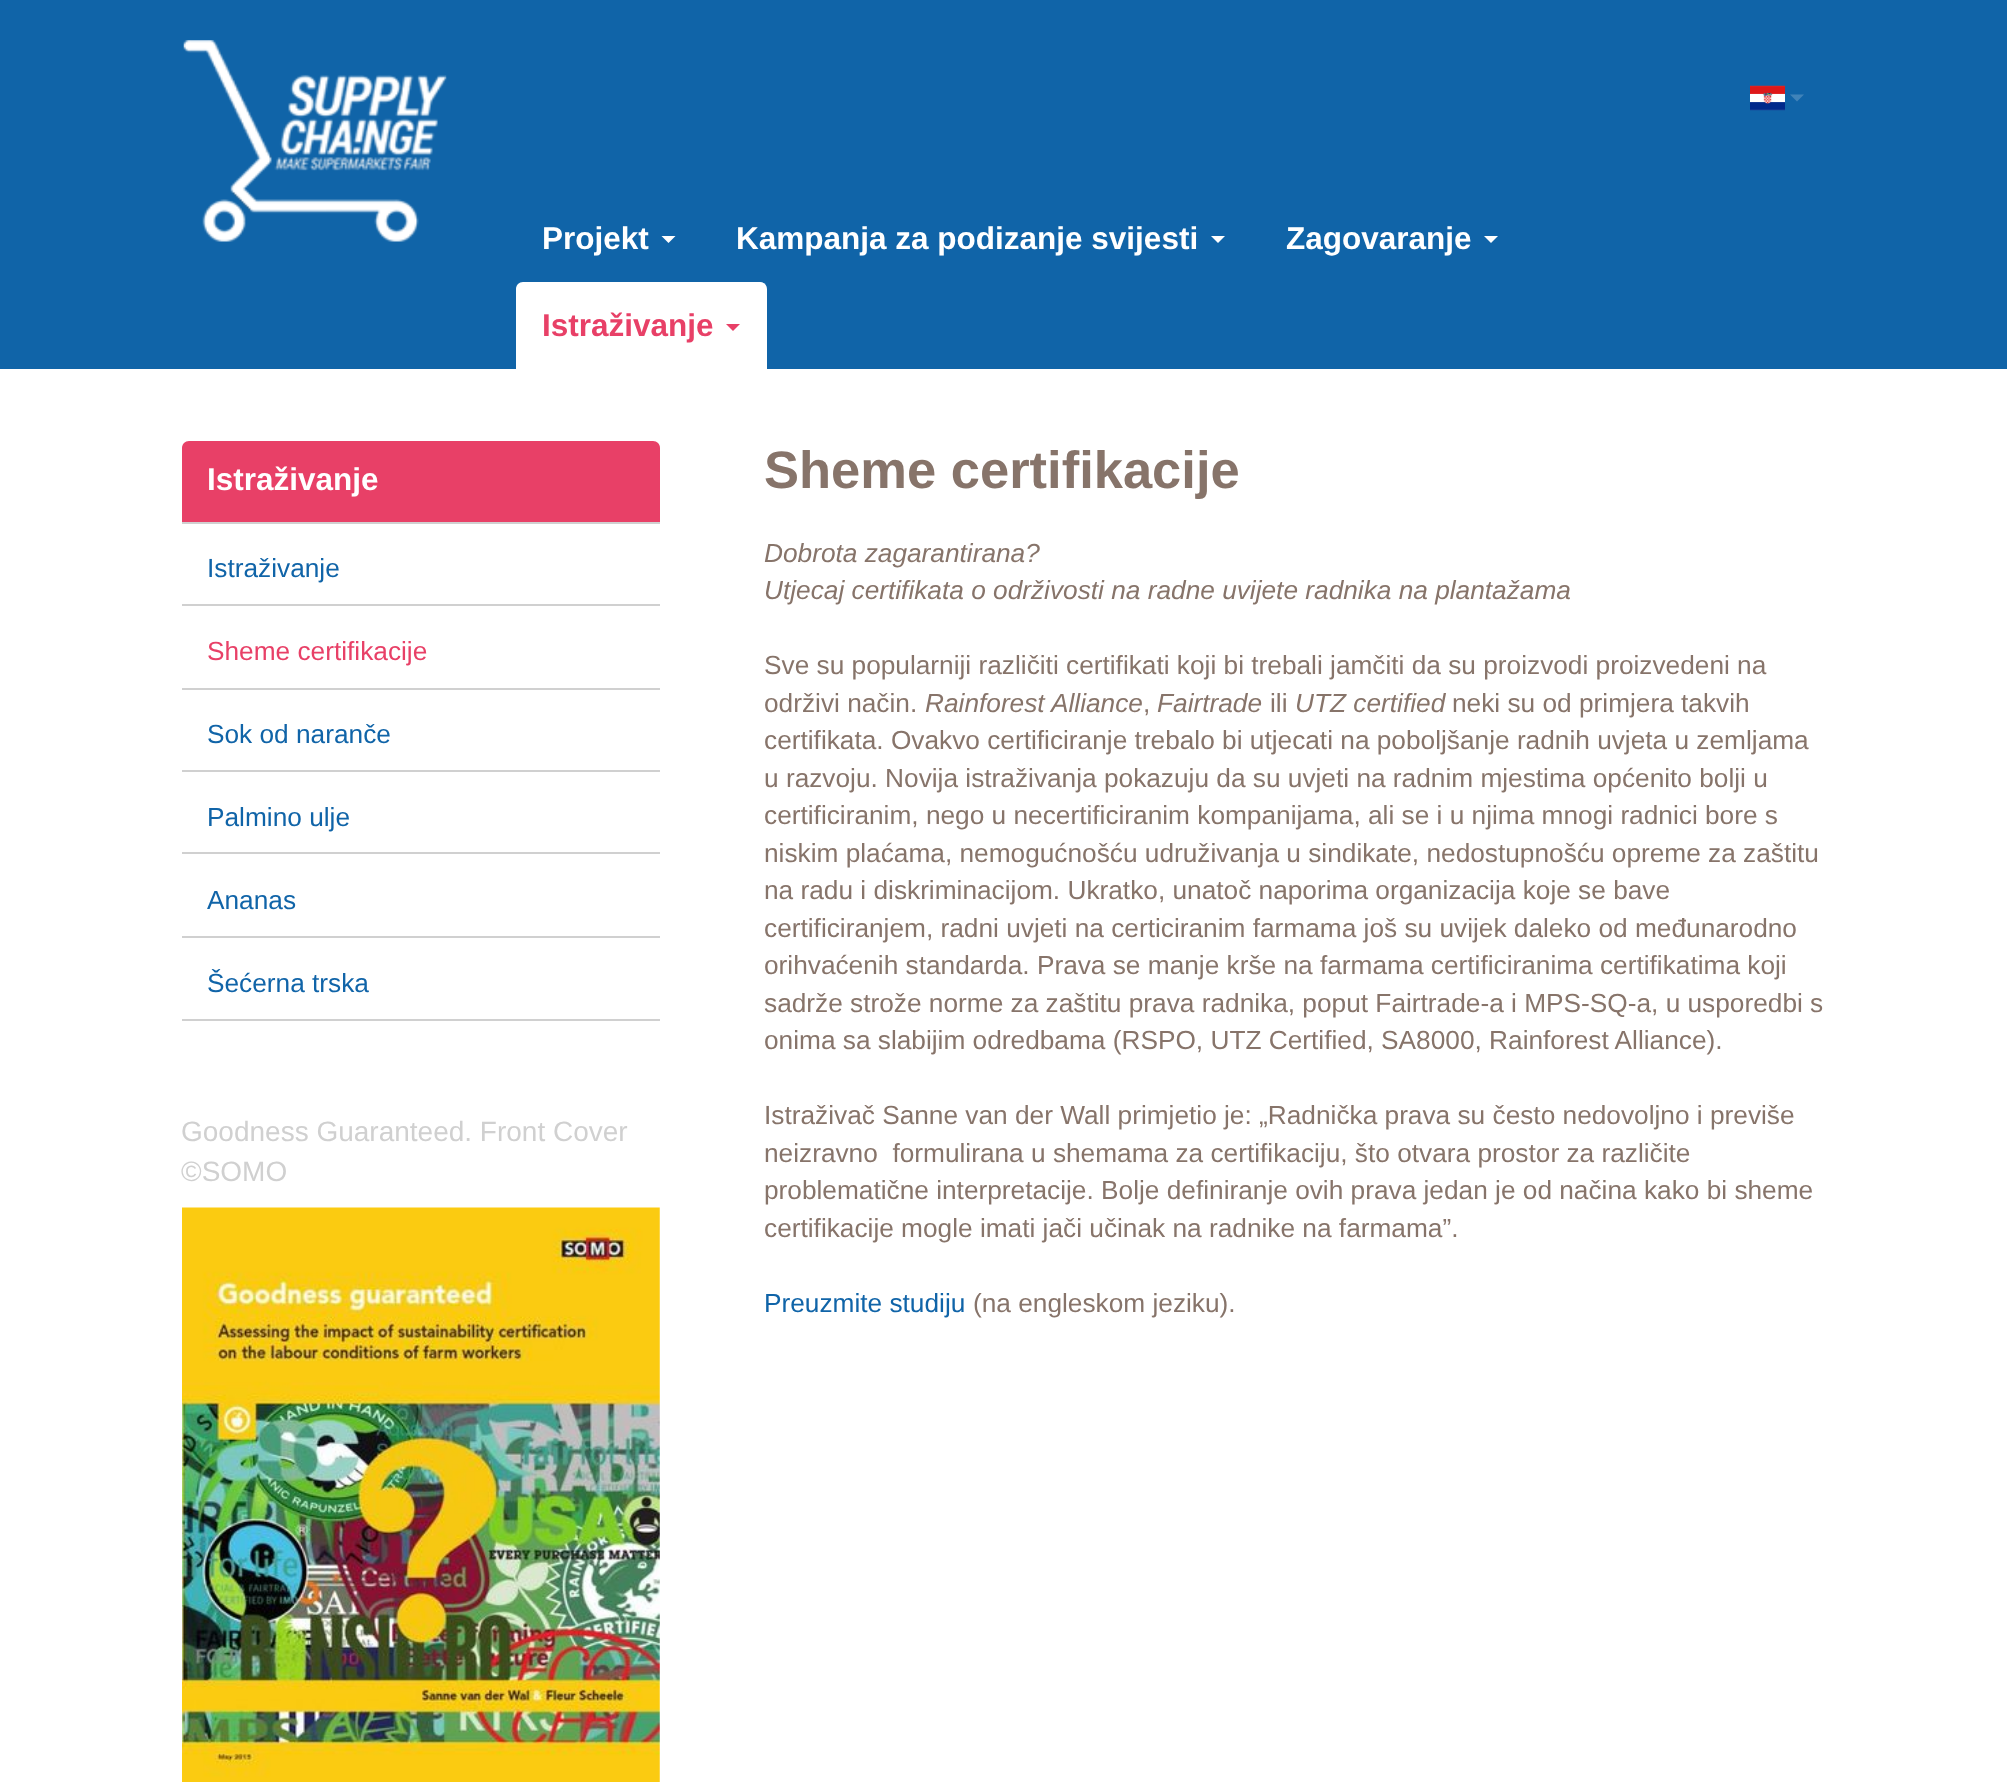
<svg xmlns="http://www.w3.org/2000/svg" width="2007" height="1782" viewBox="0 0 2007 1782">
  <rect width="100%" height="100%" fill="#fff"/>
  <path d="M0 0h2007v369H0z" fill="#1064a8"/>
  <image x="183" y="40" width="264" height="202" href="img/1.png"/>
  <image x="1750" y="85" width="35" height="26" href="img/2.png"/>
  <path d="M1790 94.5H1804L1797 101.5Z" fill="#4083b9"/>
  <path d="M661.5 236H675.5L668.5 243Z" fill="#fff"/>
  <path d="M1211 236H1225L1218 243Z" fill="#fff"/>
  <path d="M1484 236H1498L1491 243Z" fill="#fff"/>
  <path d="M523 282H760C764 282 767 285 767 289V369H516V289C516 285 519 282 523 282Z" fill="#fff"/>
  <path d="M726 324H740L733 331Z" fill="#e84067"/>
  <path d="M189 441H653C657 441 660 444 660 448V523H182V448C182 444 185 441 189 441Z" fill="#e84067"/>
  <path d="M182 522h478v2H182z" fill="#d0d0d0"/>
  <path d="M182 604h478v2H182z" fill="#d0d0d0"/>
  <path d="M182 688h478v2H182z" fill="#d0d0d0"/>
  <path d="M182 770h478v2H182z" fill="#d0d0d0"/>
  <path d="M182 852h478v2H182z" fill="#d0d0d0"/>
  <path d="M182 936h478v2H182z" fill="#d0d0d0"/>
  <path d="M182 1019h478v2H182z" fill="#d0d0d0"/>
  <image x="182" y="1207" width="478" height="575" href="img/3.png"/>
  <g font-family="Liberation Sans" font-size="31.5" font-weight="bold" fill="#fff">
    <text x="542" y="249">Projekt</text>
    <text x="736" y="249">Kampanja za podizanje svijesti</text>
    <text x="1286" y="249">Zagovaranje</text>
  </g>
  <text x="542" y="336" font-family="Liberation Sans" font-size="31.5" font-weight="bold" fill="#e84067">Istraživanje</text>
  <text x="207" y="490" font-family="Liberation Sans" font-size="31.5" font-weight="bold" fill="#fff">Istraživanje</text>
  <text x="207" y="577" font-family="Liberation Sans" font-size="26.25" fill="#1064a8">Istraživanje</text>
  <text x="207" y="660" font-family="Liberation Sans" font-size="26.25" fill="#e84067">Sheme certifikacije</text>
  <g font-family="Liberation Sans" font-size="26.25" fill="#1064a8">
    <text x="207" y="743">Sok od naranče</text>
    <text x="207" y="826">Palmino ulje</text>
    <text x="207" y="909">Ananas</text>
    <text x="207" y="992">Šećerna trska</text>
  </g>
  <g font-family="Liberation Sans" font-size="28" fill="#d0d0d0">
    <text x="181" y="1141">Goodness Guaranteed. Front Cover</text>
    <text x="181" y="1181">©SOMO</text>
  </g>
  <text x="764" y="488" font-family="Liberation Sans" font-size="52.5" font-weight="bold" fill="#87746a">Sheme certifikacije</text>
  <g font-family="Liberation Sans" font-size="26.25" font-style="italic" fill="#87746a">
    <text x="764" y="562">Dobrota zagarantirana?</text>
    <text x="764" y="599">Utjecaj certifikata o održivosti na radne uvijete radnika na plantažama</text>
  </g>
  <g font-family="Liberation Sans" font-size="26.25" fill="#87746a">
    <text x="764" y="674">Sve su popularniji različiti certifikati koji bi trebali jamčiti da su proizvodi proizvedeni na</text>
    <text x="764" y="712">održivi način.</text>
  </g>
  <text x="925" y="712" font-family="Liberation Sans" font-size="26.25" font-style="italic" fill="#87746a">Rainforest Alliance</text>
  <text x="1143" y="712" font-family="Liberation Sans" font-size="26.25" fill="#87746a">,</text>
  <text x="1157" y="712" font-family="Liberation Sans" font-size="26.25" font-style="italic" fill="#87746a">Fairtrade</text>
  <text x="1270" y="712" font-family="Liberation Sans" font-size="26.25" fill="#87746a">ili</text>
  <text x="1295" y="712" font-family="Liberation Sans" font-size="26.25" font-style="italic" fill="#87746a">UTZ certified</text>
  <g font-family="Liberation Sans" font-size="26.25" fill="#87746a">
    <text x="1452" y="712">neki su od primjera takvih</text>
    <text x="764" y="749">certifikata. Ovakvo certificiranje trebalo bi utjecati na poboljšanje radnih uvjeta u zemljama</text>
    <text x="764" y="787">u razvoju. Novija istraživanja pokazuju da su uvjeti na radnim mjestima općenito bolji u</text>
    <text x="764" y="824">certificiranim, nego u necertificiranim kompanijama, ali se i u njima mnogi radnici bore s</text>
    <text x="764" y="862">niskim plaćama, nemogućnošću udruživanja u sindikate, nedostupnošću opreme za zaštitu</text>
    <text x="764" y="899">na radu i diskriminacijom. Ukratko, unatoč naporima organizacija koje se bave</text>
    <text x="764" y="937">certificiranjem, radni uvjeti na certiciranim farmama još su uvijek daleko od međunarodno</text>
    <text x="764" y="974">orihvaćenih standarda. Prava se manje krše na farmama certificiranima certifikatima koji</text>
    <text x="764" y="1012">sadrže strože norme za zaštitu prava radnika, poput Fairtrade-a i MPS-SQ-a, u usporedbi s</text>
    <text x="764" y="1049">onima sa slabijim odredbama (RSPO, UTZ Certified, SA8000, Rainforest Alliance).</text>
    <text x="764" y="1124">Istraživač Sanne van der Wall primjetio je: „Radnička prava su često nedovoljno i previše</text>
    <text x="764" y="1162" xml:space="preserve">neizravno  formulirana u shemama za certifikaciju, što otvara prostor za različite</text>
    <text x="764" y="1199">problematične interpretacije. Bolje definiranje ovih prava jedan je od načina kako bi sheme</text>
    <text x="764" y="1237">certifikacije mogle imati jači učinak na radnike na farmama”.</text>
  </g>
  <text x="764" y="1312" font-family="Liberation Sans" font-size="26.25" fill="#1064a8">Preuzmite studiju</text>
  <text x="973" y="1312" font-family="Liberation Sans" font-size="26.25" fill="#87746a">(na engleskom jeziku).</text>
</svg>
